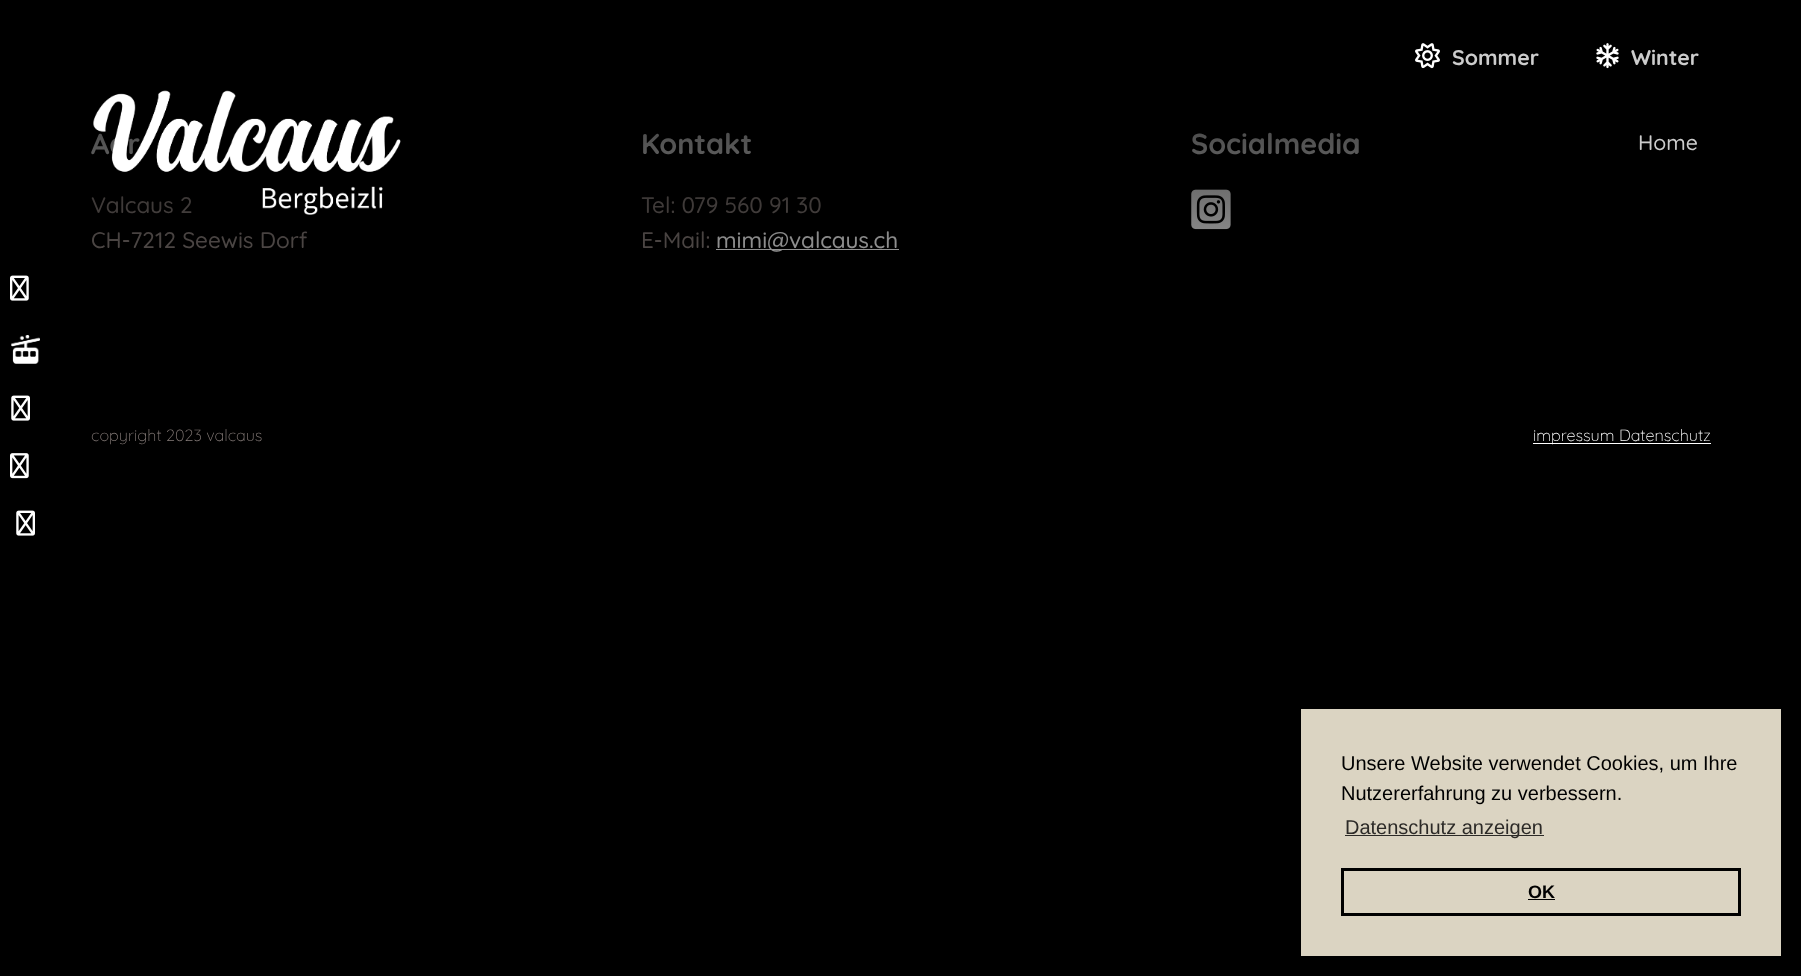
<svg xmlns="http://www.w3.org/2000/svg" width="1801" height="976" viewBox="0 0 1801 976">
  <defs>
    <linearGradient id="g1" gradientUnits="userSpaceOnUse" x1="901" y1="0" x2="901" y2="438"><stop offset="0" stop-color="#000"/><stop offset="1" stop-color="#000" stop-opacity="0"/></linearGradient>
  </defs>
  <rect width="100%" height="100%" fill="#000"/>
  <image x="1415" y="43" width="25" height="26" href="img/1.png"/>
  <image x="1596" y="43" width="23" height="26" href="img/2.png"/>
  <path d="M716 249h183v1H716z" fill="#fff"/>
  <image x="1191" y="189" width="40" height="41" href="img/3.png"/>
  <image x="10" y="275" width="19" height="26" href="img/5.png"/>
  <image x="11" y="335" width="29" height="29" href="img/6.png"/>
  <image x="11" y="395" width="19" height="26" href="img/7.png"/>
  <image x="10" y="453" width="19" height="26" href="img/8.png"/>
  <image x="16" y="510" width="19" height="26" href="img/7.png"/>
  <path d="M1533 443h178v1H1533z" fill="#fff"/>
  <path d="M1301 709h480v247H1301z" fill="#dbd4c2"/>
  <path d="M1345 835h199v1H1345z" fill="#2c2a27"/>
  <path d="M1342.5 869.5h397v45H1342.5z" fill="none" stroke="#000" stroke-width="3"/>
  <path d="M1528 899h27v1H1528z" fill="#000"/>
  <g font-family="Quicksand" font-size="21.25" font-weight="bold" fill="#ccc">
    <text x="1452" y="65">Sommer</text>
    <text x="1631" y="65">Winter</text>
  </g>
  <text x="91" y="154" font-family="Quicksand" font-size="28.75" font-weight="bold" fill="#fff">Adr</text>
  <g font-family="Quicksand" font-size="22.5" font-weight="500" fill="#867c79">
    <text x="91" y="213">Valcaus 2</text>
    <text x="91" y="248">CH-7212 Seewis Dorf</text>
  </g>
  <text x="641" y="154" font-family="Quicksand" font-size="28.75" font-weight="bold" fill="#fff">Kontakt</text>
  <g font-family="Quicksand" font-size="22.5" font-weight="500" fill="#867c79">
    <text x="641" y="213">Tel: 079 560 91 30</text>
    <text x="641" y="248">E-Mail:</text>
  </g>
  <text x="716" y="248" font-family="Quicksand" font-size="22.5" font-weight="500" fill="#fff">mimi@valcaus.ch</text>
  <text x="1191" y="154" font-family="Quicksand" font-size="28.75" font-weight="bold" fill="#fff">Socialmedia</text>
  <path d="M90 132h1268v120H90z" fill="url(#g1)"/>
  <image x="93" y="90" width="308" height="125" href="img/4.png"/>
  <text x="1638" y="150" font-family="Quicksand" font-size="21.25" font-weight="500" fill="#ccc">Home</text>
  <text x="91" y="441" font-family="Quicksand" font-size="16.25" font-weight="300" fill="#867c79">copyright 2023 valcaus</text>
  <text x="1533" y="441" font-family="Quicksand" font-size="16.25" font-weight="300" fill="#fff">impressum Datenschutz</text>
  <g font-family="Liberation Sans" font-size="20" fill="#000">
    <text x="1341" y="770">Unsere Website verwendet Cookies, um Ihre</text>
    <text x="1341" y="800">Nutzererfahrung zu verbessern.</text>
  </g>
  <text x="1345" y="834" font-family="Liberation Sans" font-size="20" fill="#2c2a27">Datenschutz anzeigen</text>
  <text x="1528" y="898" font-family="Liberation Sans" font-size="18" font-weight="bold" fill="#000">OK</text>
</svg>
